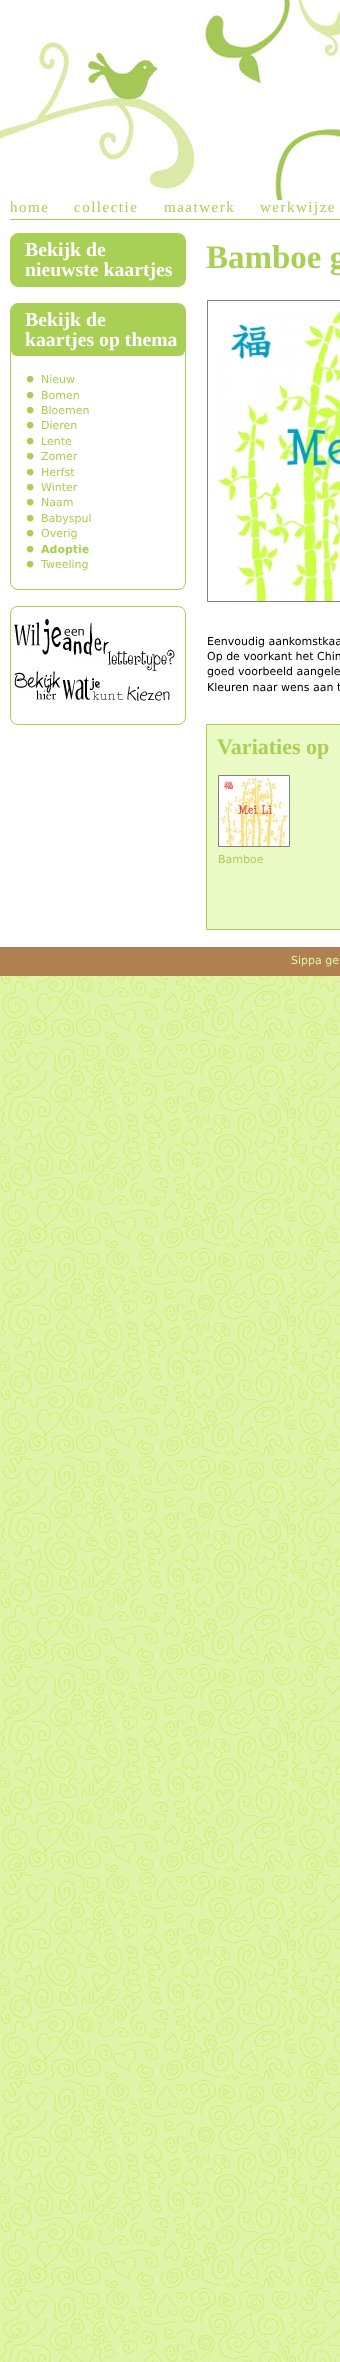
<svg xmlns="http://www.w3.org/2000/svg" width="340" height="2362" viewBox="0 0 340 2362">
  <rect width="100%" height="100%" fill="#fff"/>
  <image x="0" y="976" width="340" height="1386" href="img/1.png"/>
  <image x="0" y="0" width="340" height="200" href="img/2.png"/>
  <path d="M10 219h330v1H10z" fill="#a9cf54"/>
  <rect x="10.5" y="233.5" width="175" height="53" rx="7.5" fill="none" stroke="#a9cf54"/>
  <rect x="11" y="234" width="174" height="52" rx="6" fill="#a9cf54"/>
  <rect x="10.5" y="303.5" width="175" height="286" rx="7.5" fill="none" stroke="#a9cf54"/>
  <rect x="11" y="304" width="174" height="52" rx="6" fill="#a9cf54"/>
  <image x="27" y="376" width="7" height="7" href="img/3.png"/>
  <image x="27" y="392" width="7" height="7" href="img/3.png"/>
  <image x="27" y="407" width="7" height="7" href="img/3.png"/>
  <image x="27" y="422" width="7" height="7" href="img/3.png"/>
  <image x="27" y="438" width="7" height="7" href="img/3.png"/>
  <image x="27" y="453" width="7" height="7" href="img/3.png"/>
  <image x="27" y="469" width="7" height="7" href="img/3.png"/>
  <image x="27" y="484" width="7" height="7" href="img/3.png"/>
  <image x="27" y="499" width="7" height="7" href="img/3.png"/>
  <image x="27" y="515" width="7" height="7" href="img/3.png"/>
  <image x="27" y="530" width="7" height="7" href="img/3.png"/>
  <image x="27" y="546" width="7" height="7" href="img/3.png"/>
  <image x="27" y="561" width="7" height="7" href="img/3.png"/>
  <rect x="10.5" y="606.5" width="175" height="118" rx="7.5" fill="none" stroke="#a9cf54"/>
  <image x="11" y="613" width="164" height="88" href="img/4.png"/>
  <path d="M207.5 300.5h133v301H207.5z" fill="none" stroke="#808080"/>
  <image x="217" y="310" width="123" height="291" href="img/5.png"/>
  <path d="M206.5 724.5h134v205H206.5z" fill="#eafac5" stroke="#a9cf54"/>
  <path d="M218.5 775.5h71v71H218.5z" fill="none" stroke="#808080"/>
  <image x="219" y="776" width="70" height="70" href="img/6.png"/>
  <path d="M0 947h340v29H0z" fill="#b18050"/>
  <g font-family="Liberation Serif" font-size="15" letter-spacing="1.5" fill="#a9cf54">
    <text x="10" y="212">home</text>
    <text x="74" y="212">collectie</text>
    <text x="164" y="212">maatwerk</text>
    <text x="260" y="212">werkwijze</text>
  </g>
  <g font-family="Liberation Serif" font-size="19.75" font-weight="bold" fill="#fff">
    <text x="25" y="256">Bekijk de</text>
    <text x="25" y="276">nieuwste kaartjes</text>
    <text x="25" y="326">Bekijk de</text>
    <text x="25" y="346">kaartjes op thema</text>
  </g>
  <g font-family="DejaVu Sans" font-size="11" fill="#a9cf54">
    <text x="41" y="383">Nieuw</text>
    <text x="41" y="399">Bomen</text>
    <text x="41" y="414">Bloemen</text>
    <text x="41" y="429">Dieren</text>
    <text x="41" y="445">Lente</text>
    <text x="41" y="460">Zomer</text>
    <text x="41" y="476">Herfst</text>
    <text x="41" y="491">Winter</text>
    <text x="41" y="506">Naam</text>
    <text x="41" y="522">Babyspul</text>
    <text x="41" y="537">Overig</text>
  </g>
  <text x="41" y="553" font-family="DejaVu Sans" font-size="11" font-weight="bold" fill="#a9cf54">Adoptie</text>
  <text x="41" y="568" font-family="DejaVu Sans" font-size="11" fill="#a9cf54">Tweeling</text>
  <text x="206" y="268" font-family="Liberation Serif" font-size="33" font-weight="bold" fill="#a9cf54">Bamboe g</text>
  <g font-family="DejaVu Sans" font-size="11" fill="#000">
    <text x="207" y="645">Eenvoudig aankomstkaa</text>
    <text x="207" y="660">Op de voorkant het Chin</text>
    <text x="207" y="675">goed voorbeeld aangele</text>
    <text x="207" y="691">Kleuren naar wens aan t</text>
  </g>
  <text x="217" y="754" font-family="Liberation Serif" font-size="22" font-weight="bold" fill="#a9cf54">Variaties op</text>
  <text x="218" y="863" font-family="DejaVu Sans" font-size="11" fill="#a9cf54">Bamboe</text>
  <text x="291" y="964" font-family="DejaVu Sans" font-size="11" fill="#e0f4a8">Sippa ge</text>
</svg>
